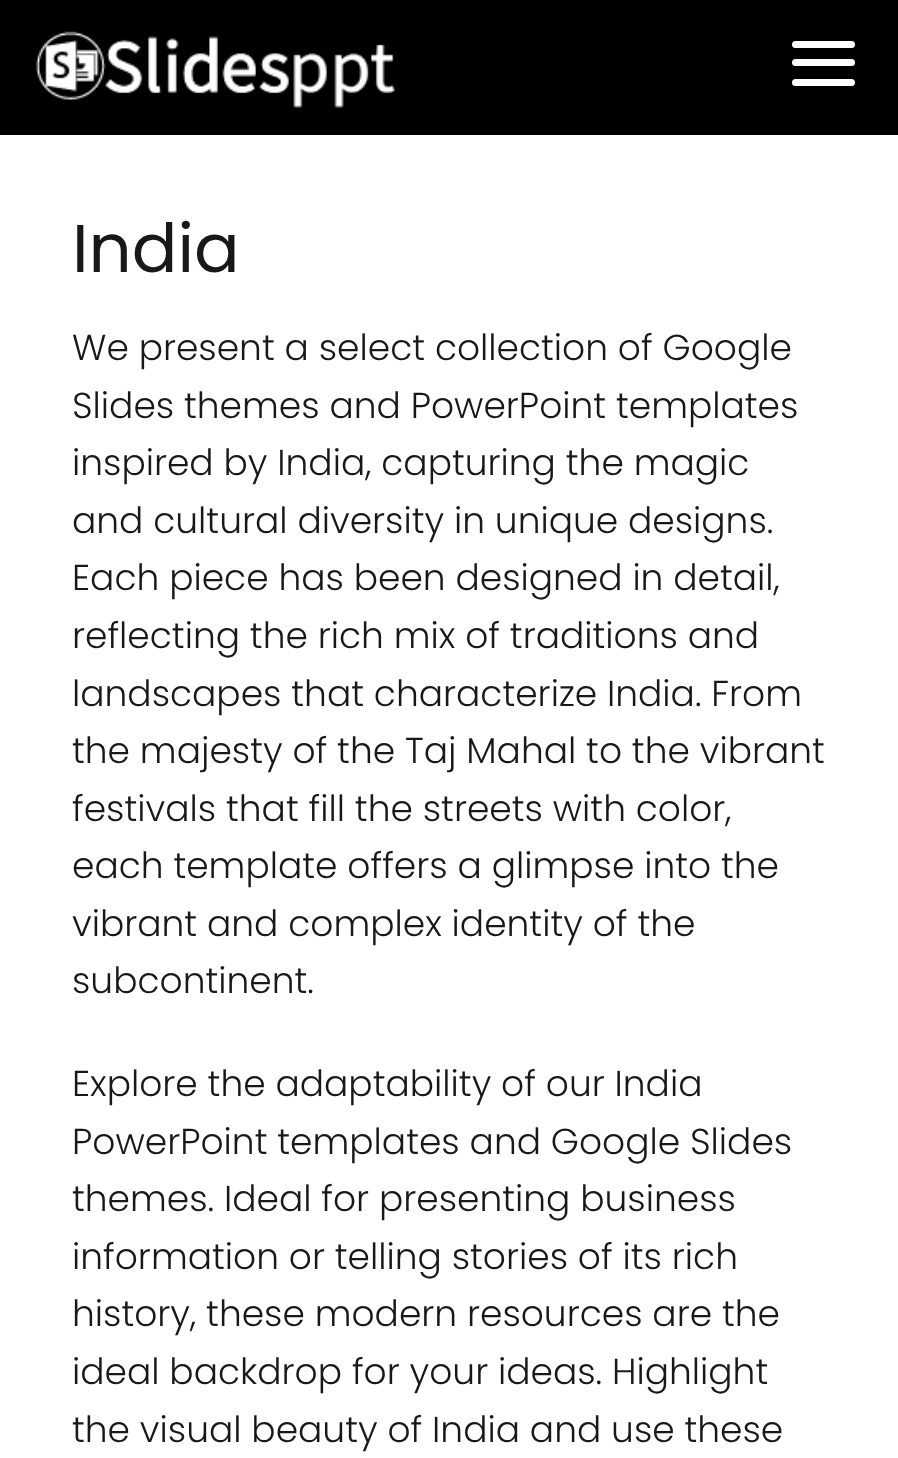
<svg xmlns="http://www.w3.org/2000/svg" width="898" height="1458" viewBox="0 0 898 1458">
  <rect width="100%" height="100%" fill="#fff"/>
  <path d="M0 0h898v135H0z" fill="#000"/>
  <image x="36" y="31" width="359" height="77" href="img/1.png"/>
  <rect x="792" y="41" width="63" height="7" rx="3.5" fill="#fff"/>
  <rect x="792" y="59" width="63" height="7" rx="3.5" fill="#fff"/>
  <rect x="792" y="79" width="63" height="7" rx="3.5" fill="#fff"/>
  <text x="72" y="272" font-family="Poppins" font-size="67.5" fill="#181818">India</text>
  <g font-family="Poppins" font-size="36" font-weight="300" fill="#181818">
    <text x="72" y="360">We present a select collection of Google</text>
    <text x="72" y="418">Slides themes and PowerPoint templates</text>
    <text x="72" y="475">inspired by India, capturing the magic</text>
    <text x="72" y="533">and cultural diversity in unique designs.</text>
    <text x="72" y="590">Each piece has been designed in detail,</text>
    <text x="72" y="648">reflecting the rich mix of traditions and</text>
    <text x="72" y="706">landscapes that characterize India. From</text>
    <text x="72" y="763">the majesty of the Taj Mahal to the vibrant</text>
    <text x="72" y="821">festivals that fill the streets with color,</text>
    <text x="72" y="878">each template offers a glimpse into the</text>
    <text x="72" y="936">vibrant and complex identity of the</text>
    <text x="72" y="993">subcontinent.</text>
    <text x="72" y="1096">Explore the adaptability of our India</text>
    <text x="72" y="1154">PowerPoint templates and Google Slides</text>
    <text x="72" y="1211">themes. Ideal for presenting business</text>
    <text x="72" y="1269">information or telling stories of its rich</text>
    <text x="72" y="1326">history, these modern resources are the</text>
    <text x="72" y="1384">ideal backdrop for your ideas. Highlight</text>
    <text x="72" y="1442">the visual beauty of India and use these</text>
  </g>
</svg>
